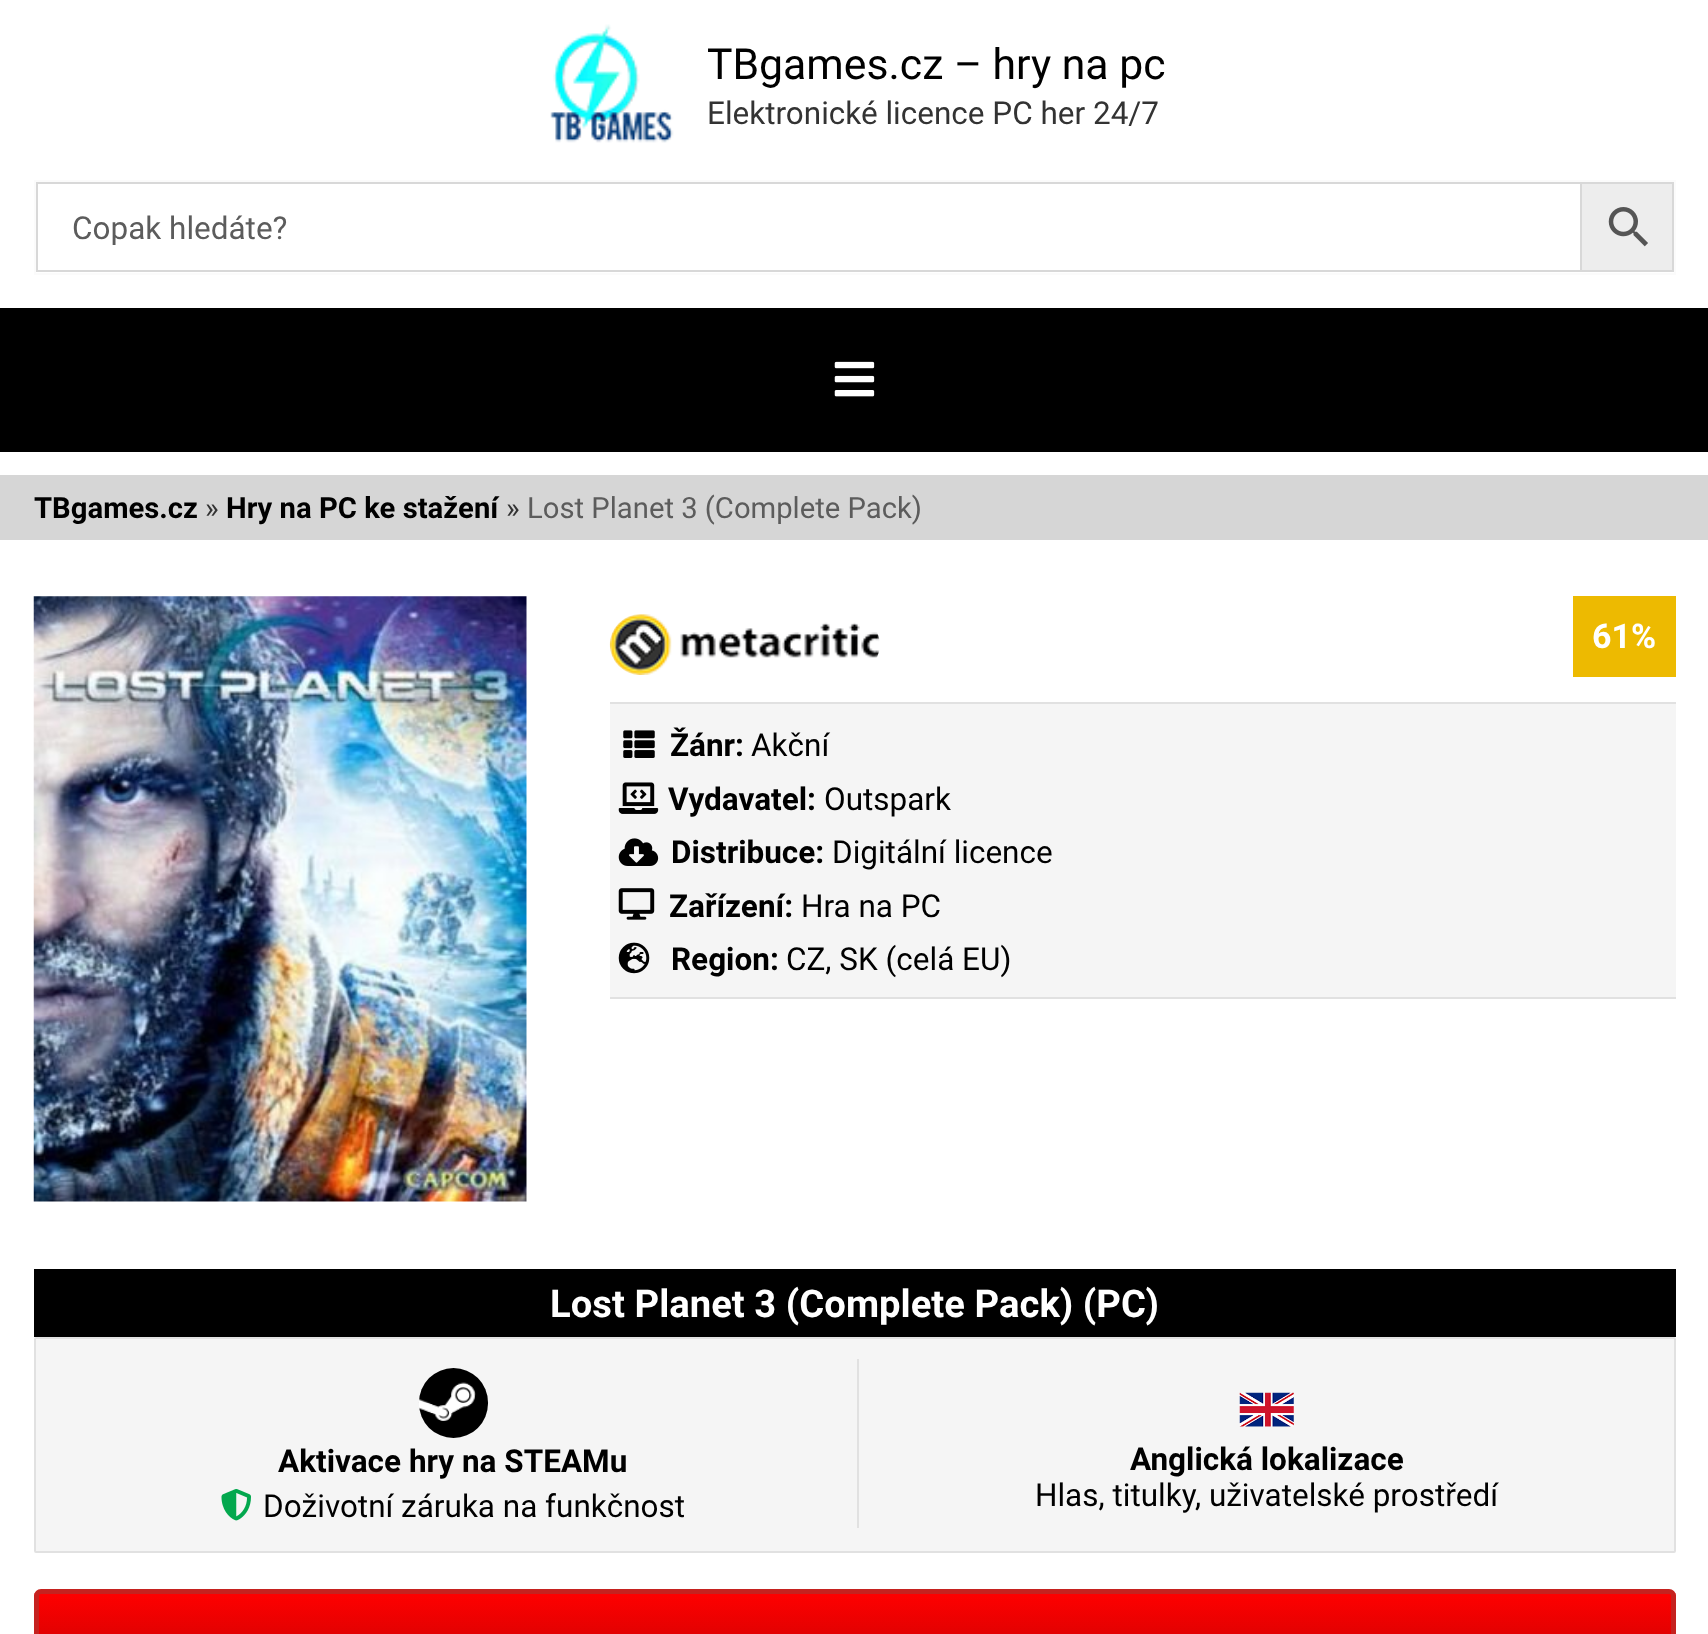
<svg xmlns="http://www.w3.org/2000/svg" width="1708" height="1634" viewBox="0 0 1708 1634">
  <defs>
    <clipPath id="clip1"><rect x="34" y="1589" width="1642" height="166" rx="7"/></clipPath>
    <linearGradient id="g1" gradientUnits="userSpaceOnUse" x1="855" y1="1593" x2="855" y2="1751"><stop offset="0" stop-color="#f00"/><stop offset="1" stop-color="#930404"/></linearGradient>
    <clipPath id="clip2"><path d="M72 209h1418v36H72z"/></clipPath>
  </defs>
  <rect width="100%" height="100%" fill="#fff"/>
  <image x="550" y="24" width="124" height="119" href="img/1.png"/>
  <path d="M35 181h1640v93H35z" fill="none" stroke="#fbfbfb" stroke-width="2"/>
  <path d="M1581 183h92v88H1581z" fill="#ededed" stroke="#d8d8d8" stroke-width="2"/>
  <path d="M37 183h1544v88H37z" fill="none" stroke="#d8d8d8" stroke-width="2"/>
  <image x="1608" y="207" width="40" height="40" href="img/2.png"/>
  <path d="M0 308h1708v144H0z" fill="#000"/>
  <image x="834" y="361" width="41" height="36" href="img/3.png"/>
  <path d="M0 475h1708v65H0z" fill="#d6d6d6"/>
  <image x="33" y="596" width="494" height="606" href="img/4.png"/>
  <image x="609" y="614" width="271" height="61" href="img/5.png"/>
  <path d="M1573 596h103v81H1573z" fill="#edba01"/>
  <path d="M610 704h1066v293H610z" fill="#f5f5f5"/>
  <path d="M610 702h1066v2H610z" fill="#e1e1e1"/>
  <path d="M610 997h1066v2H610z" fill="#e1e1e1"/>
  <image x="623" y="730" width="32" height="28" href="img/6.png"/>
  <image x="618" y="782" width="41" height="32" href="img/7.png"/>
  <image x="618" y="838" width="41" height="28" href="img/8.png"/>
  <image x="618" y="888" width="37" height="32" href="img/9.png"/>
  <image x="618" y="942" width="32" height="32" href="img/10.png"/>
  <path d="M34 1269h1642v68H34z" fill="#000"/>
  <rect x="35" y="1338" width="1640" height="214" rx="1" fill="#f5f5f5" stroke="#e1e1e1" stroke-width="2"/>
  <path d="M857 1359h2v169H857z" fill="#e1e1e1"/>
  <rect x="419" y="1368" width="69" height="70" rx="34.5" fill="#000"/>
  <image x="419" y="1382" width="57" height="39" href="img/11.png"/>
  <image x="221" y="1489" width="30" height="32" href="img/12.png"/>
  <image x="1239" y="1392" width="55" height="35" href="img/13.png"/>
  <g clip-path="url(#clip1)">
    <path d="M34 1593h1642v41H34z" fill="url(#g1)"/>
  </g>
  <rect x="36.5" y="1591.5" width="1637" height="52" rx="4.5" fill="none" stroke="#c5221f" stroke-width="5"/>
  <text x="707" y="79" font-family="Roboto" font-size="42.75" fill="#000">TBgames.cz – hry na pc</text>
  <text x="707" y="124" font-family="Roboto" font-size="31.5" fill="#333">Elektronické licence PC her 24/7</text>
  <g clip-path="url(#clip2)">
    <text x="72" y="239" font-family="Roboto" font-size="31.5" fill="#5c5c5c">Copak hledáte?</text>
  </g>
  <text x="34" y="518" font-family="Roboto" font-size="29.25" font-weight="bold" fill="#000">TBgames.cz</text>
  <text x="205" y="518" font-family="Roboto" font-size="29.25" fill="#333">»</text>
  <text x="226" y="518" font-family="Roboto" font-size="29.25" font-weight="bold" fill="#000">Hry na PC ke stažení</text>
  <text x="506" y="518" font-family="Roboto" font-size="29.25" fill="#333">»</text>
  <text x="527" y="518" font-family="Roboto" font-size="29.25" fill="#5c5c5c">Lost Planet 3 (Complete Pack)</text>
  <text x="1592" y="648" font-family="Roboto" font-size="34" font-weight="bold" fill="#fff">61%</text>
  <text x="670" y="756" font-family="Roboto" font-size="31.5" font-weight="bold" fill="#000">Žánr:</text>
  <text x="751" y="756" font-family="Roboto" font-size="31.5" fill="#000">Akční</text>
  <text x="668" y="810" font-family="Roboto" font-size="31.5" font-weight="bold" fill="#000">Vydavatel:</text>
  <text x="824" y="810" font-family="Roboto" font-size="31.5" fill="#000">Outspark</text>
  <text x="671" y="863" font-family="Roboto" font-size="31.5" font-weight="bold" fill="#000">Distribuce:</text>
  <text x="832" y="863" font-family="Roboto" font-size="31.5" fill="#000">Digitální licence</text>
  <text x="669" y="917" font-family="Roboto" font-size="31.5" font-weight="bold" fill="#000">Zařízení:</text>
  <text x="801" y="917" font-family="Roboto" font-size="31.5" fill="#000">Hra na PC</text>
  <text x="671" y="970" font-family="Roboto" font-size="31.5" font-weight="bold" fill="#000">Region:</text>
  <text x="786" y="970" font-family="Roboto" font-size="31.5" fill="#000">CZ, SK (celá EU)</text>
  <text x="550" y="1317" font-family="Roboto" font-size="38.25" font-weight="bold" fill="#fff">Lost Planet 3 (Complete Pack) (PC)</text>
  <text x="278" y="1472" font-family="Roboto" font-size="31.5" font-weight="bold" fill="#000">Aktivace hry na STEAMu</text>
  <text x="263" y="1517" font-family="Roboto" font-size="31.5" fill="#000">Doživotní záruka na funkčnost</text>
  <text x="1130" y="1470" font-family="Roboto" font-size="31.5" font-weight="bold" fill="#000">Anglická lokalizace</text>
  <text x="1035" y="1506" font-family="Roboto" font-size="31.5" fill="#000">Hlas, titulky, uživatelské prostředí</text>
</svg>
